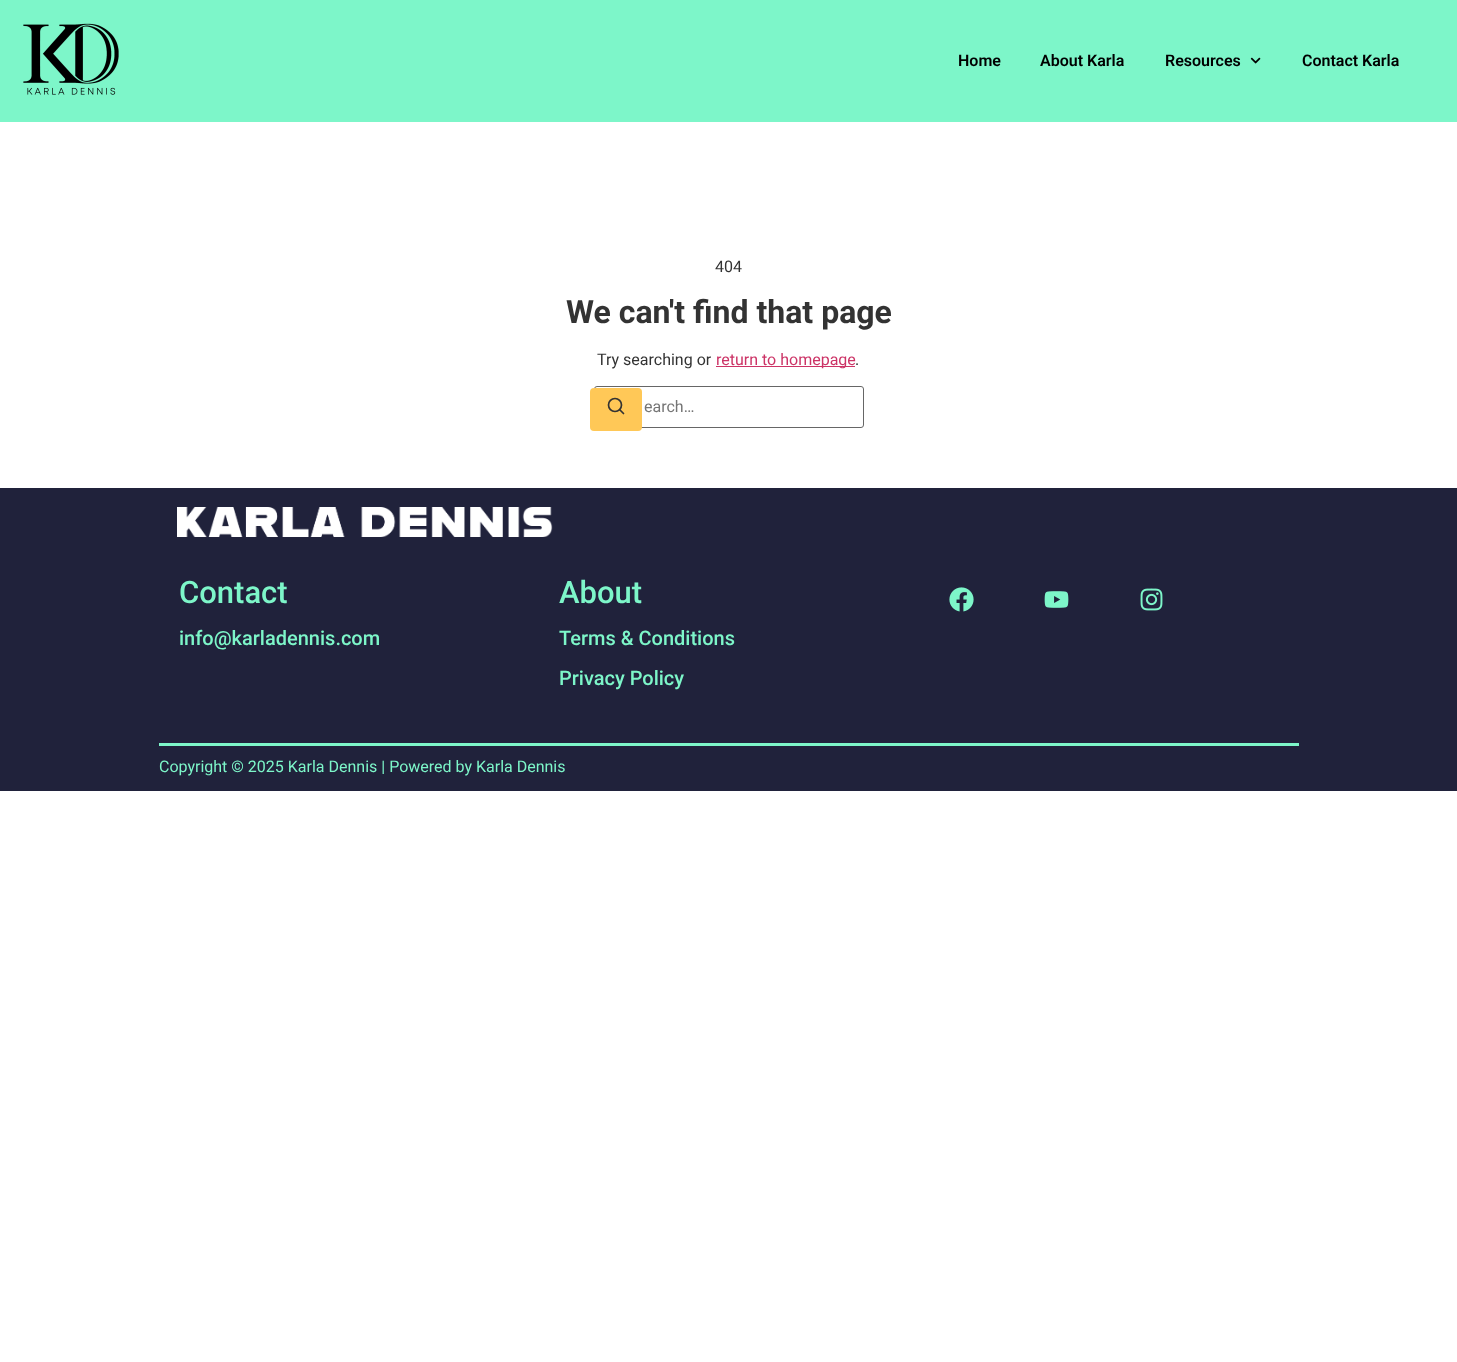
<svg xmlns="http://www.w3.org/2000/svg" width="1457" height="1362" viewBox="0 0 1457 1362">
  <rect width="100%" height="100%" fill="#fff"/>
  <path d="M0 0h1457v122H0z" fill="#7df6c9"/>
  <image x="23" y="23" width="96" height="72" href="img/1.png"/>
  <image x="1250" y="57" width="11" height="7" href="img/2.png"/>
  <path d="M716 366h139v1H716z" fill="#c36"/>
  <rect x="594.5" y="386.5" width="269" height="41" rx="2.5" fill="none" stroke="#666"/>
  <rect x="590" y="388" width="52" height="43" rx="4" fill="#ffc857"/>
  <circle cx="615" cy="405" r="6.5" fill="none" stroke="#333" stroke-width="1.7"/>
  <path d="M623.5 413.5L620 410" fill="none" stroke="#333" stroke-width="1.7" stroke-linecap="round" stroke-linejoin="round"/>
  <path d="M0 488h1457v303H0z" fill="#20223b"/>
  <image x="177" y="507" width="376" height="30" href="img/3.png"/>
  <image x="949" y="587" width="25" height="25" href="img/4.png"/>
  <image x="1044" y="591" width="25" height="17" href="img/5.png"/>
  <image x="1140" y="588" width="23" height="23" href="img/6.png"/>
  <path d="M159 743h1140v3H159z" fill="#7df6c9"/>
  <g font-family="Roboto" font-size="16" font-weight="600" fill="#000">
    <text x="958" y="66">Home</text>
    <text x="1040" y="66">About Karla</text>
    <text x="1165" y="66">Resources</text>
    <text x="1302" y="66">Contact Karla</text>
  </g>
  <text x="715" y="272" font-family="Roboto" font-size="16" fill="#333">404</text>
  <text x="566" y="323" font-family="Roboto" font-size="32" font-weight="bold" fill="#333">We can't find that page</text>
  <text x="597" y="365" font-family="Roboto" font-size="16" fill="#333">Try searching or</text>
  <text x="716" y="365" font-family="Roboto" font-size="16" fill="#c36">return to homepage</text>
  <text x="855" y="365" font-family="Roboto" font-size="16" fill="#333">.</text>
  <text x="644" y="412" font-family="Roboto" font-size="16" fill="#757575">earch…</text>
  <text x="179" y="603" font-family="Roboto" font-size="31" font-weight="500" fill="#7df6c9">Contact</text>
  <text x="179" y="645" font-family="Roboto" font-size="20" font-weight="500" fill="#7df6c9">info@karladennis.com</text>
  <text x="559" y="603" font-family="Roboto" font-size="31" font-weight="500" fill="#7df6c9">About</text>
  <g font-family="Roboto" font-size="20" font-weight="500" fill="#7df6c9">
    <text x="559" y="645">Terms &amp; Conditions</text>
    <text x="559" y="685">Privacy Policy</text>
  </g>
  <text x="159" y="772" font-family="Roboto" font-size="16" fill="#7df6c9">Copyright © 2025 Karla Dennis | Powered by Karla Dennis</text>
</svg>
